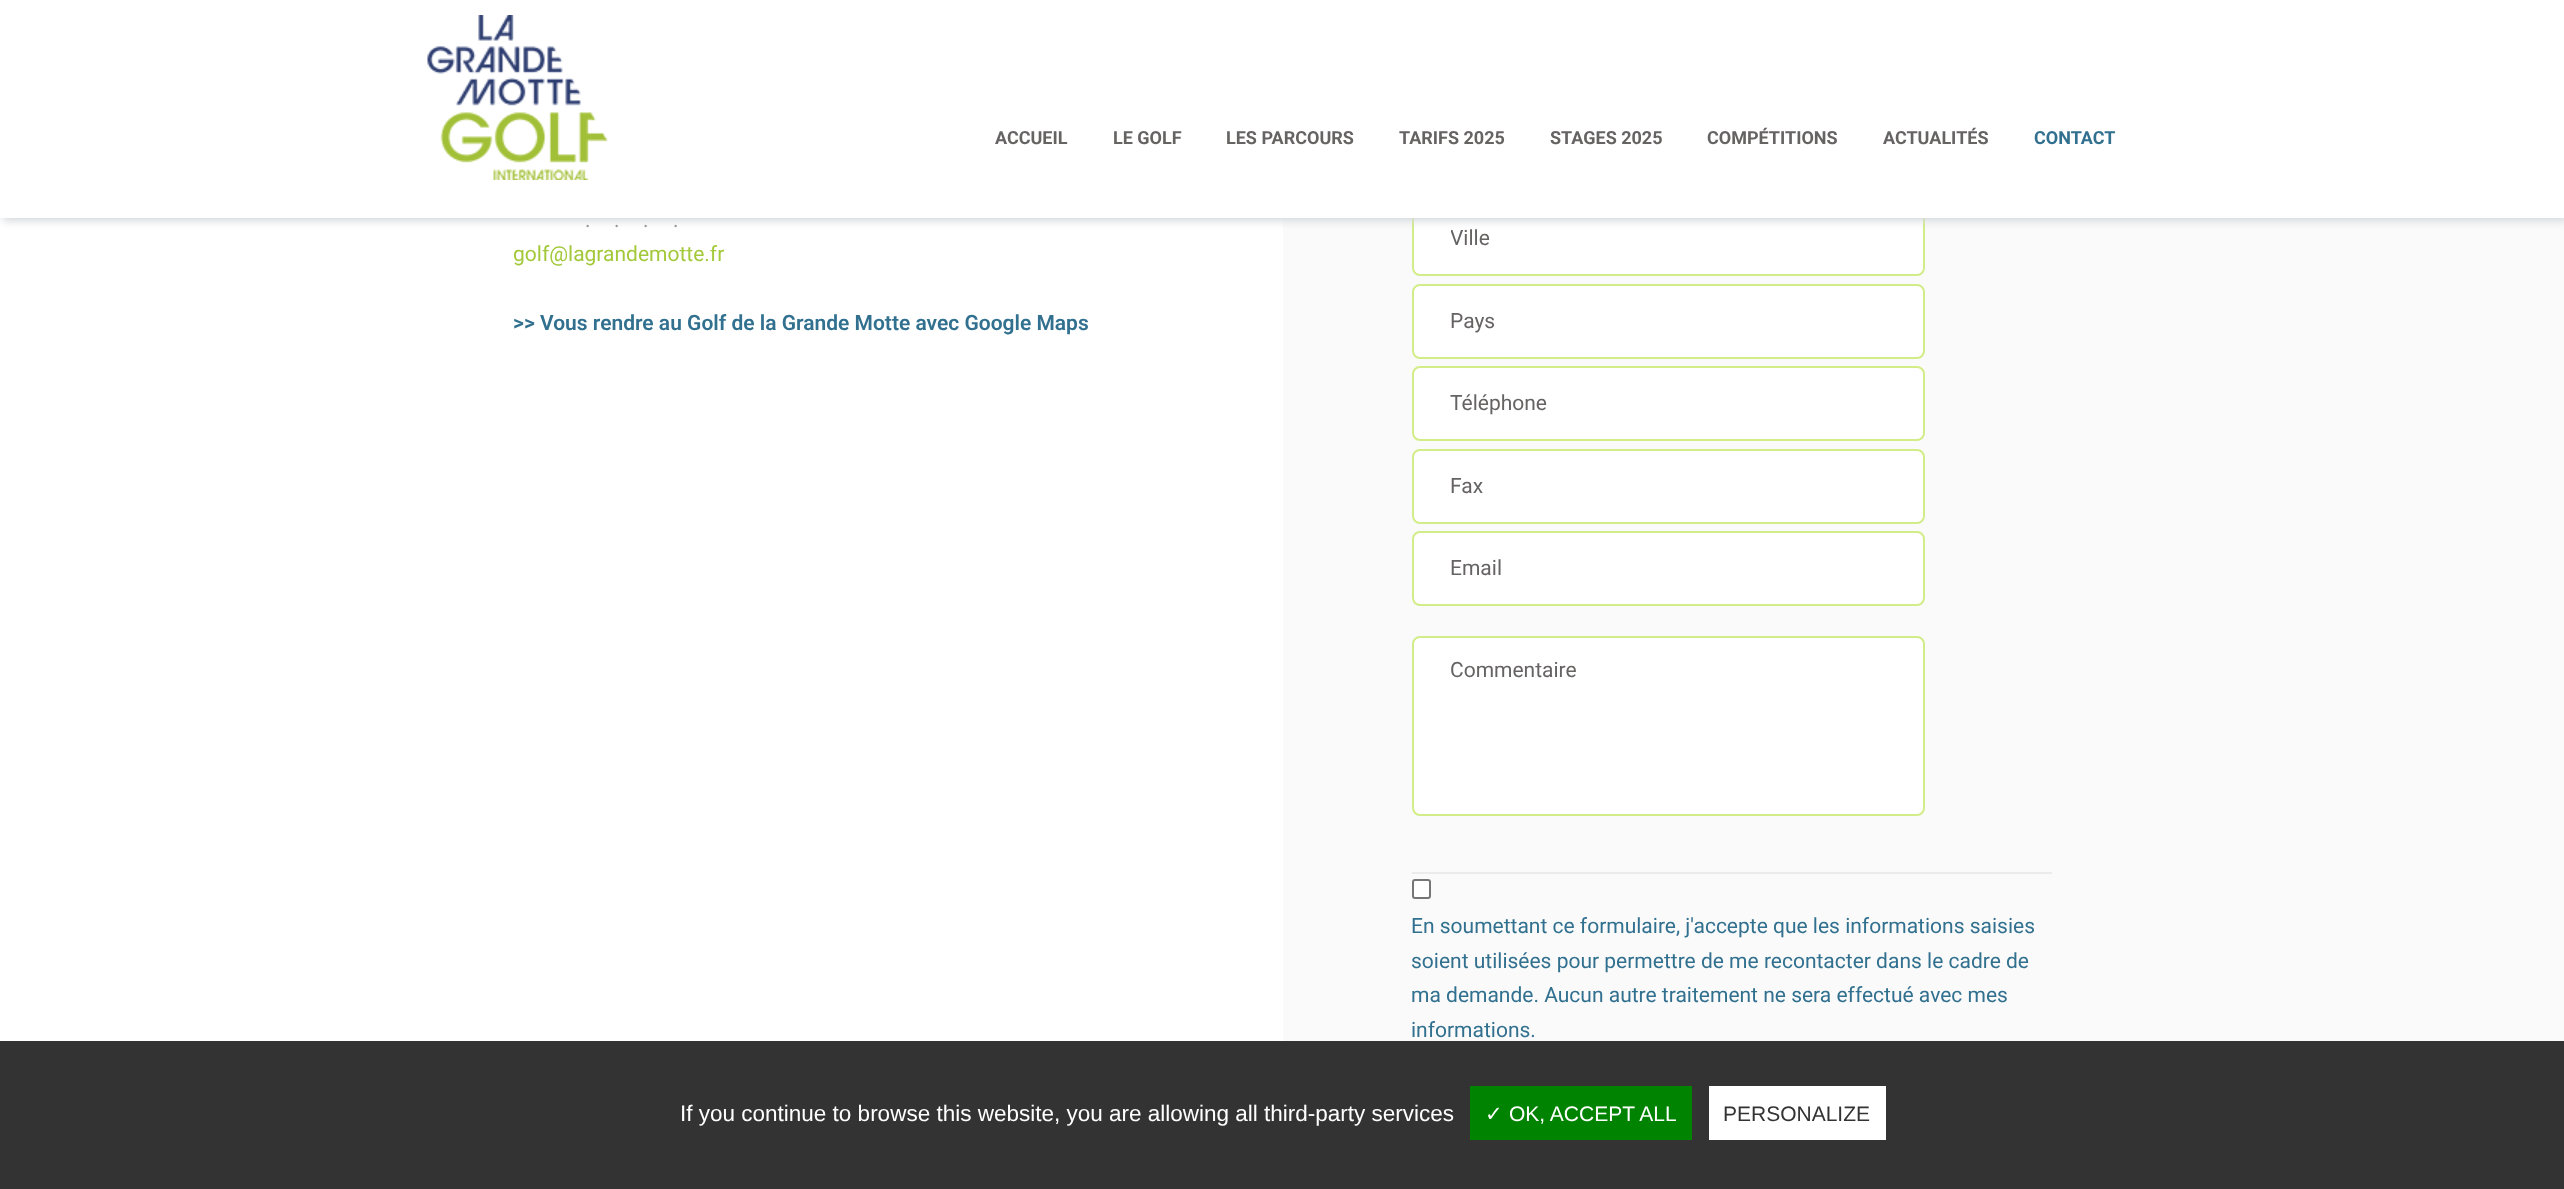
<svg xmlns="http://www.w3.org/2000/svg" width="2564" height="1189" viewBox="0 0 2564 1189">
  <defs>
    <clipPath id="clip1"><path d="M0 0H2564V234H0ZM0 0H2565V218H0Z" clip-rule="evenodd"/></clipPath>
    <clipPath id="clip2"><path d="M1451 227h457v24H1451z"/></clipPath>
  </defs>
  <rect width="100%" height="100%" fill="#fff"/>
  <path d="M1283 218h1281v823H1283z" fill="#fafafa"/>
  <rect x="1413" y="202" width="511" height="73" rx="7" fill="#fff" stroke="#d2ed88" stroke-width="2"/>
  <path d="M1412 201h513v17H1412z" fill="#fff"/>
  <g clip-path="url(#clip1)">
    <path d="M3 3h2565v218H3z" fill="#d4d8db" filter="blur(4px)"/>
  </g>
  <image x="427" y="15" width="181" height="165" href="img/1.png"/>
  <rect x="1413" y="285" width="511" height="73" rx="7" fill="#fff" stroke="#d2ed88" stroke-width="2"/>
  <rect x="1413" y="367" width="511" height="73" rx="7" fill="#fff" stroke="#d2ed88" stroke-width="2"/>
  <rect x="1413" y="450" width="511" height="73" rx="7" fill="#fff" stroke="#d2ed88" stroke-width="2"/>
  <rect x="1413" y="532" width="511" height="73" rx="7" fill="#fff" stroke="#d2ed88" stroke-width="2"/>
  <path d="M1412 872h640v2H1412z" fill="#ebebeb"/>
  <rect x="1413" y="637" width="511" height="178" rx="7" fill="#fff" stroke="#d2ed88" stroke-width="2"/>
  <rect x="1413" y="880" width="17" height="18" rx="2" fill="#fff" stroke="#767676" stroke-width="2"/>
  <path d="M0 1041h2564v148H0z" fill="#333"/>
  <path d="M1470 1086h222v54H1470z" fill="#008300"/>
  <path d="M1709 1086h177v54H1709z" fill="#fff"/>
  <g font-family="Roboto" font-size="18" font-weight="bold" fill="#666363">
    <text x="995" y="144">ACCUEIL</text>
    <text x="1113" y="144">LE GOLF</text>
    <text x="1226" y="144">LES PARCOURS</text>
    <text x="1399" y="144">TARIFS 2025</text>
    <text x="1550" y="144">STAGES 2025</text>
    <text x="1707" y="144">COMPÉTITIONS</text>
    <text x="1883" y="144">ACTUALITÉS</text>
  </g>
  <text x="2034" y="144" font-family="Roboto" font-size="18" font-weight="bold" fill="#31708f">CONTACT</text>
  <g font-family="Roboto" font-size="21" fill="#959595">
    <text x="585" y="227">.</text>
    <text x="614" y="227">.</text>
    <text x="643" y="227">.</text>
    <text x="673" y="227">.</text>
  </g>
  <text x="513" y="261" font-family="Roboto" font-size="21" fill="#a3c93a">golf@lagrandemotte.fr</text>
  <text x="513" y="330" font-family="Roboto" font-size="21" font-weight="600" fill="#31708f">&gt;&gt; Vous rendre au Golf de la Grande Motte avec Google Maps</text>
  <g clip-path="url(#clip2)">
    <text x="1450" y="245" font-family="Roboto" font-size="21" fill="#666363">Ville</text>
  </g>
  <g font-family="Roboto" font-size="21" fill="#666363">
    <text x="1450" y="328">Pays</text>
    <text x="1450" y="410">Téléphone</text>
    <text x="1450" y="493">Fax</text>
    <text x="1450" y="575">Email</text>
    <text x="1450" y="677">Commentaire</text>
  </g>
  <g font-family="Roboto" font-size="21" fill="#31708f">
    <text x="1411" y="933">En soumettant ce formulaire, j'accepte que les informations saisies</text>
    <text x="1411" y="968">soient utilisées pour permettre de me recontacter dans le cadre de</text>
    <text x="1411" y="1002">ma demande. Aucun autre traitement ne sera effectué avec mes</text>
    <text x="1411" y="1037">informations.</text>
  </g>
  <text x="680" y="1121" font-family="Liberation Sans" font-size="22.5" fill="#fff">If you continue to browse this website, you are allowing all third-party services</text>
  <text x="1485" y="1121" font-family="DejaVu Sans" font-size="21" fill="#fff">✓</text>
  <text x="1509" y="1121" font-family="Liberation Sans" font-size="21" fill="#fff">OK, ACCEPT ALL</text>
  <text x="1723" y="1121" font-family="Liberation Sans" font-size="21" fill="#333">PERSONALIZE</text>
</svg>
